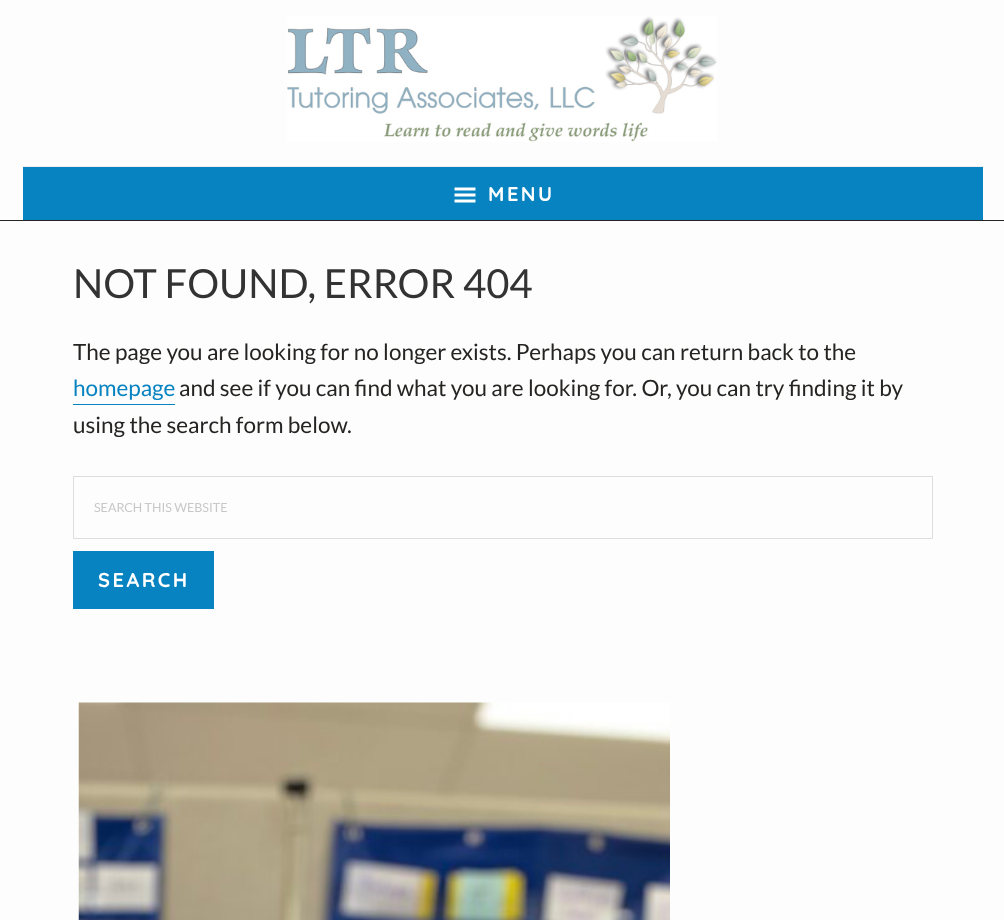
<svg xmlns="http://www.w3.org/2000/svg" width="1004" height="920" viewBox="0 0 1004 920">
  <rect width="100%" height="100%" fill="#fdfdfd"/>
  <path d="M0 220h1004v1H0z" fill="#252422"/>
  <image x="287" y="16" width="430" height="126" href="img/1.png"/>
  <path d="M23 167h960v53H23z" fill="#0783c1"/>
  <path d="M23 166h960v1H23z" fill="#eee"/>
  <image x="454" y="187" width="22" height="16" href="img/2.png"/>
  <path d="M73 404h102v1H73z" fill="#0783c1"/>
  <path d="M73.5 476.5h859v62H73.5z" fill="none" stroke="#ddd"/>
  <path d="M73 551h141v58H73z" fill="#0783c1"/>
  <image x="78" y="702" width="592" height="218" href="img/3.png"/>
  <text x="488" y="201" font-family="Quicksand" font-size="20" font-weight="300" letter-spacing="2.5" fill="#fff">MENU</text>
  <text x="73" y="298" font-family="Lato" font-size="40" fill="#333">NOT FOUND, ERROR 404</text>
  <text x="73" y="360" font-family="Lato" font-size="22.5" fill="#252422">The page you are looking for no longer exists. Perhaps you can return back to the</text>
  <text x="73" y="396" font-family="Lato" font-size="22.5" fill="#0783c1">homepage</text>
  <g font-family="Lato" font-size="22.5" fill="#252422">
    <text x="179" y="396">and see if you can find what you are looking for. Or, you can try finding it by</text>
    <text x="73" y="433">using the search form below.</text>
  </g>
  <text x="94" y="512" font-family="Lato" font-size="12.5" fill="#c8c8c8">SEARCH THIS WEBSITE</text>
  <text x="98" y="587" font-family="Quicksand" font-size="20" font-weight="300" letter-spacing="2.5" fill="#fff">SEARCH</text>
</svg>
